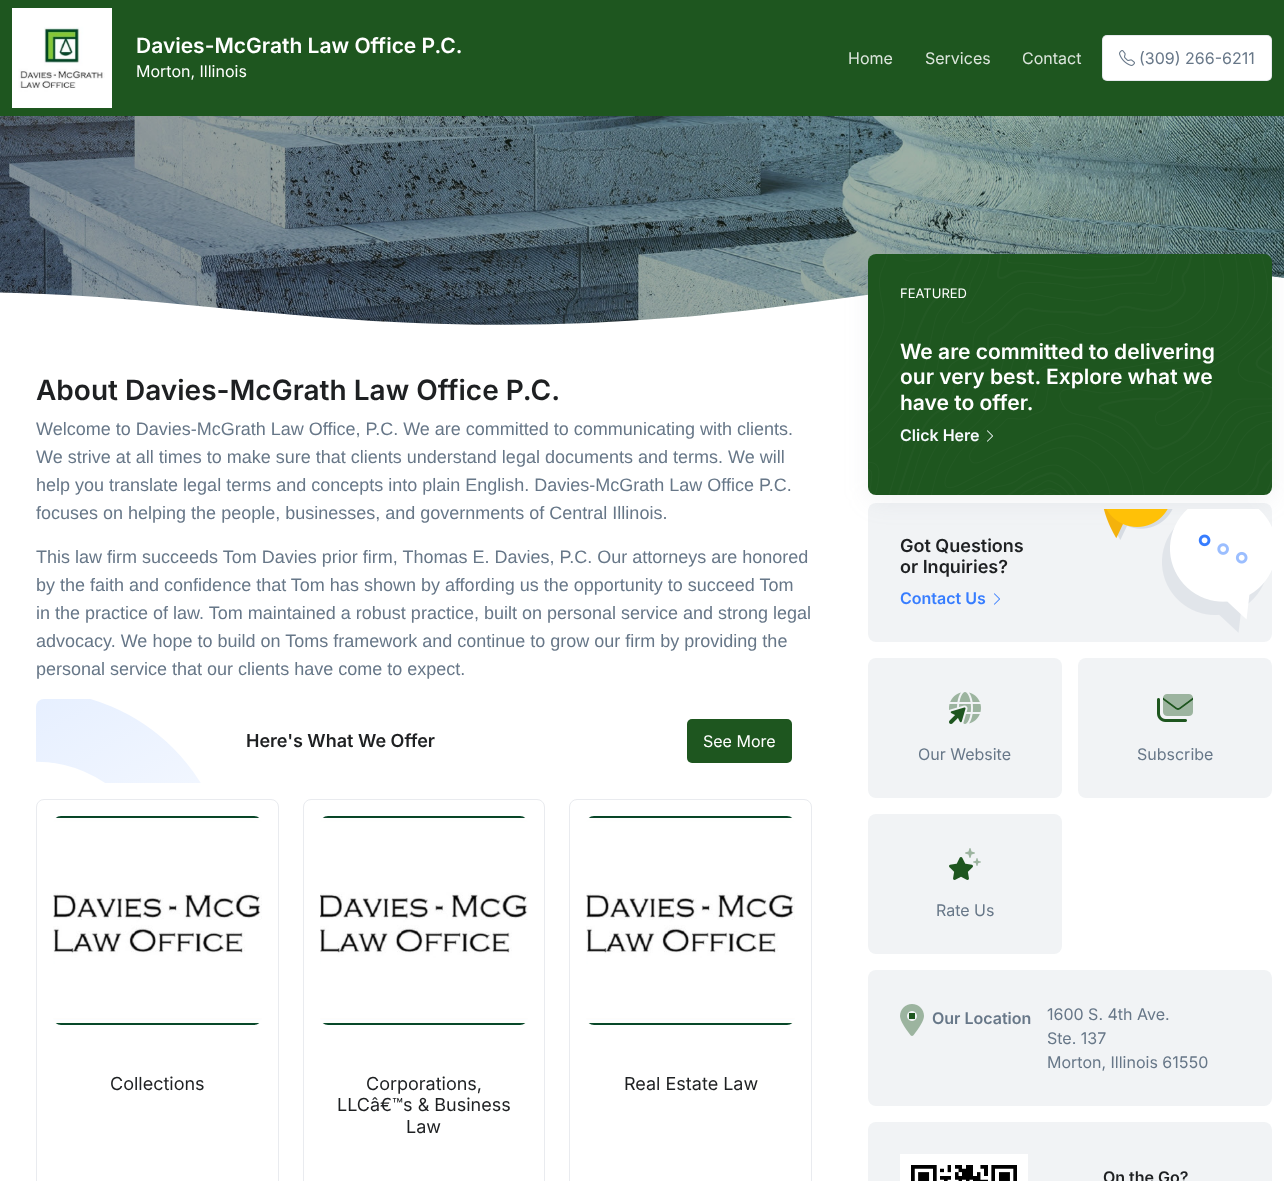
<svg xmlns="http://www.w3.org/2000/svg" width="1284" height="1181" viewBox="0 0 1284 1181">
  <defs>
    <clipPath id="clip1"><rect x="36" y="699" width="776" height="84" rx="8"/></clipPath>
    <linearGradient id="g1" gradientUnits="userSpaceOnUse" x1="175" y1="1029" x2="-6" y2="715"><stop offset="0" stop-color="#fff"/><stop offset="1" stop-color="#e6efff"/></linearGradient>
  </defs>
  <rect width="100%" height="100%" fill="#fff"/>
  <path d="M0 0h1284v116H0z" fill="#1e561f"/>
  <image x="12" y="8" width="100" height="100" href="img/1.png"/>
  <rect x="1102" y="35" width="170" height="46" rx="5" fill="#fff"/>
  <rect x="1102.5" y="35.5" width="169" height="45" rx="4.5" fill="none" stroke="#21325b1a"/>
  <image x="1119" y="50" width="16" height="16" href="img/2.png"/>
  <image x="0" y="116" width="1284" height="209" href="img/3.png"/>
  <path d="M99 297C177 303 253 312 331 318C442 327 558 327 669 318C776 310 888 290 995 279C1089 270 1193 266 1284 278V326H-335V312C-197 292-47 287 99 297Z" fill="#fff"/>
  <g clip-path="url(#clip1)">
    <path d="M36 726.5C123.5 726.5 194.5 797.5 194.5 885C194.5 972.5 123.5 1043.5 36 1043.5" fill="none" stroke="url(#g1)" stroke-width="70.5"/>
  </g>
  <rect x="687" y="719" width="105" height="44" rx="5" fill="#1e561f"/>
  <rect x="36.5" y="799.5" width="242" height="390" rx="7.5" fill="none" stroke="#e9ebef"/>
  <image x="53" y="816" width="209" height="209" href="img/4.png"/>
  <rect x="303.5" y="799.5" width="241" height="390" rx="7.5" fill="none" stroke="#e9ebef"/>
  <image x="320" y="816" width="208" height="209" href="img/5.png"/>
  <rect x="569.5" y="799.5" width="242" height="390" rx="7.5" fill="none" stroke="#e9ebef"/>
  <image x="586" y="816" width="209" height="209" href="img/6.png"/>
  <rect x="868" y="260" width="404" height="241" rx="8" fill="#8c98a41f" filter="blur(12px)"/>
  <rect x="868" y="254" width="404" height="241" rx="8" fill="#1e561f"/>
  <image x="868" y="254" width="404" height="241" href="img/7.png"/>
  <image x="987" y="430" width="6" height="12" href="img/8.png"/>
  <rect x="868" y="503" width="404" height="139" rx="8" fill="#71869d1a"/>
  <image x="994" y="593" width="6" height="12" href="img/9.png"/>
  <image x="1103" y="509" width="169" height="124" href="img/10.png"/>
  <rect x="868" y="658" width="194" height="140" rx="8" fill="#f1f3f5"/>
  <image x="949" y="707" width="17" height="17" href="img/12.png"/>
  <image x="949" y="692" width="32" height="32" href="img/11.png"/>
  <rect x="1078" y="658" width="194" height="140" rx="8" fill="#f1f3f5"/>
  <image x="1157" y="697" width="36" height="25" href="img/14.png"/>
  <image x="1163" y="694" width="30" height="22" href="img/13.png"/>
  <rect x="868" y="814" width="194" height="140" rx="8" fill="#f1f3f5"/>
  <image x="949" y="857" width="24" height="23" href="img/16.png"/>
  <image x="965" y="848" width="16" height="18" href="img/15.png"/>
  <rect x="868" y="970" width="404" height="136" rx="8" fill="#f1f3f5"/>
  <path d="M909 1013h6v6H909z" fill="#1e561f"/>
  <image x="900" y="1004" width="24" height="32" href="img/17.png"/>
  <rect x="868" y="1122" width="404" height="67" rx="8" fill="#f1f3f5"/>
  <image x="900" y="1154" width="128" height="27" href="img/18.png"/>
  <text x="136" y="53" font-family="Inter" font-size="21" font-weight="600" fill="#fff">Davies-McGrath Law Office P.C.</text>
  <text x="136" y="77" font-family="Inter" font-size="16" fill="#fff">Morton, Illinois</text>
  <g font-family="Inter" font-size="16" fill="#dde6dd">
    <text x="848" y="64">Home</text>
    <text x="925" y="64">Services</text>
    <text x="1022" y="64">Contact</text>
  </g>
  <text x="1139" y="64" font-family="Inter" font-size="16" fill="#677788">(309) 266-6211</text>
  <text x="36" y="400" font-family="Inter" font-size="28" font-weight="600" fill="#1e2022">About Davies-McGrath Law Office P.C.</text>
  <g font-family="Liberation Sans" font-size="18" fill="#677788">
    <text x="36" y="435">Welcome to Davies-McGrath Law Office, P.C. We are committed to communicating with clients.</text>
    <text x="36" y="463">We strive at all times to make sure that clients understand legal documents and terms. We will</text>
    <text x="36" y="491">help you translate legal terms and concepts into plain English. Davies-McGrath Law Office P.C.</text>
    <text x="36" y="519">focuses on helping the people, businesses, and governments of Central Illinois.</text>
    <text x="36" y="563">This law firm succeeds Tom Davies prior firm, Thomas E. Davies, P.C. Our attorneys are honored</text>
    <text x="36" y="591">by the faith and confidence that Tom has shown by affording us the opportunity to succeed Tom</text>
    <text x="36" y="619">in the practice of law. Tom maintained a robust practice, built on personal service and strong legal</text>
    <text x="36" y="647">advocacy. We hope to build on Toms framework and continue to grow our firm by providing the</text>
    <text x="36" y="675">personal service that our clients have come to expect.</text>
  </g>
  <text x="246" y="747" font-family="Inter" font-size="18" font-weight="600" fill="#1e2022">Here's What We Offer</text>
  <text x="703" y="747" font-family="Inter" font-size="16" fill="#fff">See More</text>
  <g font-family="Inter" font-size="18" fill="#1e2022">
    <text x="110" y="1090">Collections</text>
    <text x="366" y="1090">Corporations,</text>
    <text x="337" y="1111">LLCâ€™s &amp; Business</text>
    <text x="406" y="1133">Law</text>
    <text x="624" y="1090">Real Estate Law</text>
  </g>
  <text x="900" y="298" font-family="Inter" font-size="13" fill="#fff">FEATURED</text>
  <g font-family="Inter" font-size="21" font-weight="600" fill="#fff">
    <text x="900" y="359">We are committed to delivering</text>
    <text x="900" y="384">our very best. Explore what we</text>
    <text x="900" y="410">have to offer.</text>
  </g>
  <text x="900" y="441" font-family="Inter" font-size="16" font-weight="600" fill="#f7faff">Click Here</text>
  <g font-family="Inter" font-size="18" font-weight="600" fill="#1e2022">
    <text x="900" y="552">Got Questions</text>
    <text x="900" y="573">or Inquiries?</text>
  </g>
  <text x="900" y="604" font-family="Inter" font-size="16" font-weight="600" fill="#377dff">Contact Us</text>
  <g font-family="Inter" font-size="16" fill="#677788">
    <text x="918" y="760">Our Website</text>
    <text x="1137" y="760">Subscribe</text>
    <text x="936" y="916">Rate Us</text>
  </g>
  <text x="932" y="1024" font-family="Inter" font-size="16" font-weight="600" fill="#677788">Our Location</text>
  <g font-family="Inter" font-size="16" fill="#677788">
    <text x="1047" y="1020">1600 S. 4th Ave.</text>
    <text x="1047" y="1044">Ste. 137</text>
    <text x="1047" y="1068">Morton, Illinois 61550</text>
  </g>
  <text x="1103" y="1183" font-family="Inter" font-size="16" font-weight="600" fill="#1e2022">On the Go?</text>
</svg>
